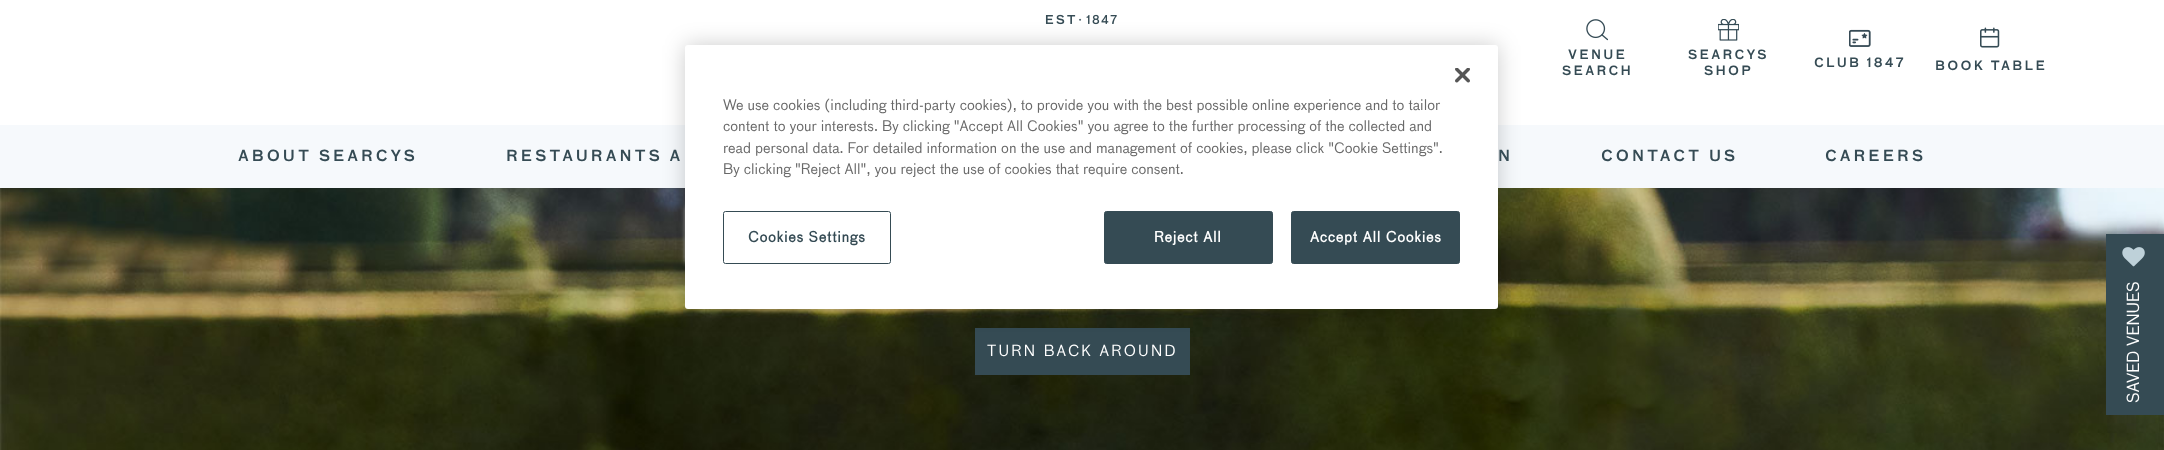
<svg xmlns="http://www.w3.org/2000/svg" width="2164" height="450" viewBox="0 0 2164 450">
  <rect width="100%" height="100%" fill="#fff"/>
  <image x="1586" y="19" width="22" height="22" href="img/1.png"/>
  <image x="1718" y="19" width="21" height="22" href="img/2.png"/>
  <image x="1849" y="29" width="22" height="18" href="img/3.png"/>
  <image x="1980" y="27" width="20" height="21" href="img/4.png"/>
  <image x="1045" y="14" width="72" height="11" href="img/6.png"/>
  <path d="M0 125h2164v63H0z" fill="#f6f9fc"/>
  <image x="0" y="188" width="2164" height="262" href="img/7.png"/>
  <path d="M975 328h215v47H975z" fill="#354b54"/>
  <rect x="685" y="45" width="813" height="264" rx="3" fill="#00000033" filter="blur(11px)"/>
  <rect x="685" y="45" width="813" height="264" rx="3" fill="#fff"/>
  <image x="1455" y="68" width="15" height="15" href="img/5.png"/>
  <rect x="723.5" y="211.5" width="167" height="52" rx="2" fill="none" stroke="#354b54"/>
  <rect x="1104.5" y="211.5" width="168" height="52" rx="2" fill="#354b54" stroke="#354b54"/>
  <rect x="1291.5" y="211.5" width="168" height="52" rx="2" fill="#354b54" stroke="#354b54"/>
  <path d="M2106 234h58v181H2106z" fill="#354b54"/>
  <image x="2122" y="247" width="23" height="20" href="img/8.png"/>
  <g font-family="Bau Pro" font-size="12.5" font-weight="500" letter-spacing="2.25" fill="#354b54">
    <text x="1568" y="59">VENUE</text>
    <text x="1562" y="75">SEARCH</text>
    <text x="1688" y="59">SEARCYS</text>
    <text x="1704" y="75">SHOP</text>
    <text x="1814" y="67">CLUB 1847</text>
    <text x="1935" y="70">BOOK TABLE</text>
  </g>
  <g font-family="Bau Pro" font-size="14.23" fill="#696969">
    <text x="723" y="110">We use cookies (including third-party cookies), to provide you with the best possible online experience and to tailor</text>
    <text x="723" y="131">content to your interests. By clicking "Accept All Cookies" you agree to the further processing of the collected and</text>
    <text x="723" y="153">read personal data. For detailed information on the use and management of cookies, please click "Cookie Settings".</text>
    <text x="723" y="174">By clicking "Reject All", you reject the use of cookies that require consent.</text>
  </g>
  <text x="748" y="242" font-family="Bau Pro" font-size="14.23" font-weight="bold" letter-spacing="0.75" fill="#354b54">Cookies Settings</text>
  <g font-family="Bau Pro" font-size="14.23" font-weight="bold" letter-spacing="0.75" fill="#fff">
    <text x="1154" y="242">Reject All</text>
    <text x="1310" y="242">Accept All Cookies</text>
  </g>
  <g font-family="Bau Pro" font-size="15" font-weight="500" letter-spacing="3" fill="#354b54">
    <text x="238" y="161">ABOUT SEARCYS</text>
    <text x="506" y="161">RESTAURANTS A</text>
    <text x="1498" y="161">N</text>
    <text x="1601" y="161">CONTACT US</text>
    <text x="1825" y="161">CAREERS</text>
  </g>
  <text x="987" y="356" font-family="Bau Pro" font-size="15" letter-spacing="2.25" fill="#fff">TURN BACK AROUND</text>
  <text x="2139" y="403" transform="rotate(-90 2139 403)" font-family="Bau Pro" font-size="16.25" fill="#fff">SAVED VENUES</text>
</svg>
